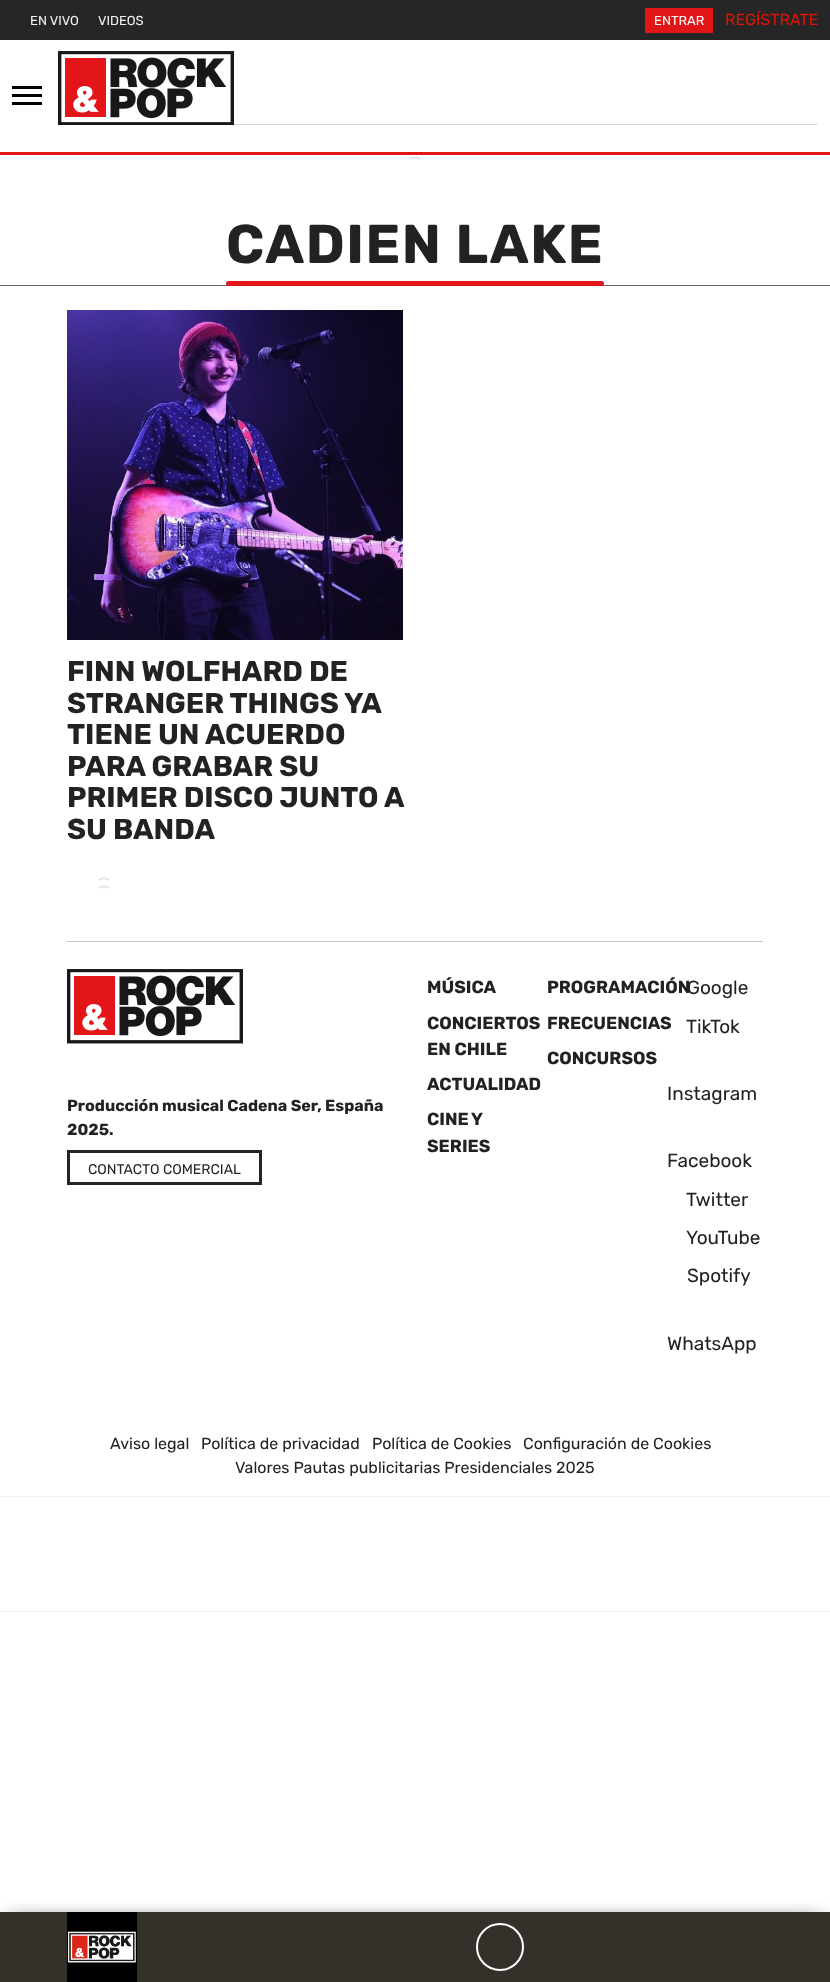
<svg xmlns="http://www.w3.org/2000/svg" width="830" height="1982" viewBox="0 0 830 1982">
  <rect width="100%" height="100%" fill="#fff"/>
  <path d="M0 0h830v40H0z" fill="#262626"/>
  <path d="M645 8h68v25H645z" fill="#e21618"/>
  <path d="M12 86h30v3H12z" fill="#000"/>
  <path d="M12 94h30v3H12z" fill="#000"/>
  <path d="M12 102h30v3H12z" fill="#000"/>
  <image x="58" y="51" width="176" height="74" href="img/1.png"/>
  <path d="M234 124h584v1H234z" fill="#dadada"/>
  <path d="M0 152h830v3H0z" fill="#e21618"/>
  <path d="M410 159C412.5 156.5 417.5 156.5 420 159" fill="none" stroke="#e6e6e6" stroke-width="2"/>
  <path d="M0 285h830v1H0z" fill="#666"/>
  <rect x="226" y="281" width="378" height="5" rx="2.5" fill="#e2181a"/>
  <image x="67" y="310" width="336" height="330" href="img/2.png"/>
  <path d="M99 880C101.5 877.5 106.5 877.5 109 880M99 888C101.5 885.5 106.5 885.5 109 888" fill="none" stroke="#e6e6e6" stroke-width="2"/>
  <path d="M67 941h696v1H67z" fill="#c8c8c8"/>
  <image x="67" y="969" width="176" height="75" href="img/3.png"/>
  <path d="M68.5 1151.5h192v32H68.5z" fill="none" stroke="#212529" stroke-width="3"/>
  <path d="M0 1496h830v1H0z" fill="#eee"/>
  <path d="M0 1611h830v1H0z" fill="#eee"/>
  <path d="M17 1922h810v50H17z" fill="#00000080" filter="blur(10px)"/>
  <path d="M3 1922h810v50H3z" fill="#00000080" filter="blur(10px)"/>
  <path d="M0 1912h830v70H0z" fill="#34302a"/>
  <image x="67" y="1912" width="70" height="70" href="img/4.png"/>
  <circle cx="500" cy="1947" r="23" fill="none" stroke="#fff" stroke-width="2"/>
  <g font-family="Rubik" font-size="13" fill="#f3f0f0">
    <text x="30" y="25">EN VIVO</text>
    <text x="98" y="25">VIDEOS</text>
  </g>
  <text x="654" y="25" font-family="Rubik" font-size="13" fill="#fff">ENTRAR</text>
  <text x="725" y="25" font-family="Rubik" font-size="16" fill="#e11306">REGÍSTRATE</text>
  <text x="226" y="263" font-family="Rubik" font-size="54.5" font-weight="bold" letter-spacing="1.5" fill="#222">CADIEN LAKE</text>
  <g font-family="Rubik" font-size="28.75" font-weight="bold" fill="#222">
    <text x="67" y="681">FINN WOLFHARD DE</text>
    <text x="67" y="713">STRANGER THINGS YA</text>
    <text x="67" y="744">TIENE UN ACUERDO</text>
    <text x="67" y="776">PARA GRABAR SU</text>
    <text x="67" y="807">PRIMER DISCO JUNTO A</text>
    <text x="67" y="839">SU BANDA</text>
  </g>
  <g font-family="Rubik" font-size="16" font-weight="bold" fill="#222">
    <text x="67" y="1111">Producción musical Cadena Ser, España</text>
    <text x="67" y="1135">2025.</text>
  </g>
  <text x="88" y="1174" font-family="Rubik" font-size="14" fill="#212529">CONTACTO COMERCIAL</text>
  <g font-family="Rubik" font-size="17.5" font-weight="bold" fill="#222">
    <text x="427" y="993">MÚSICA</text>
    <text x="427" y="1029">CONCIERTOS</text>
    <text x="427" y="1055">EN CHILE</text>
    <text x="427" y="1090">ACTUALIDAD</text>
    <text x="427" y="1125" word-spacing="-1">CINE Y</text>
    <text x="427" y="1152">SERIES</text>
    <text x="547" y="993">PROGRAMACIÓN</text>
    <text x="547" y="1029">FRECUENCIAS</text>
    <text x="547" y="1064">CONCURSOS</text>
  </g>
  <g font-family="Rubik" font-size="19" fill="#222">
    <text x="687" y="994">Google</text>
    <text x="686" y="1033">TikTok</text>
    <text x="667" y="1100">Instagram</text>
    <text x="667" y="1167">Facebook</text>
    <text x="686" y="1206">Twitter</text>
    <text x="686" y="1244">YouTube</text>
    <text x="687" y="1282">Spotify</text>
    <text x="667" y="1350">WhatsApp</text>
  </g>
  <g font-family="Rubik" font-size="16" fill="#222">
    <text x="110" y="1449">Aviso legal</text>
    <text x="201" y="1449">Política de privacidad</text>
    <text x="372" y="1449">Política de Cookies</text>
    <text x="523" y="1449">Configuración de Cookies</text>
    <text x="235" y="1473">Valores Pautas publicitarias Presidenciales 2025</text>
  </g>
</svg>
